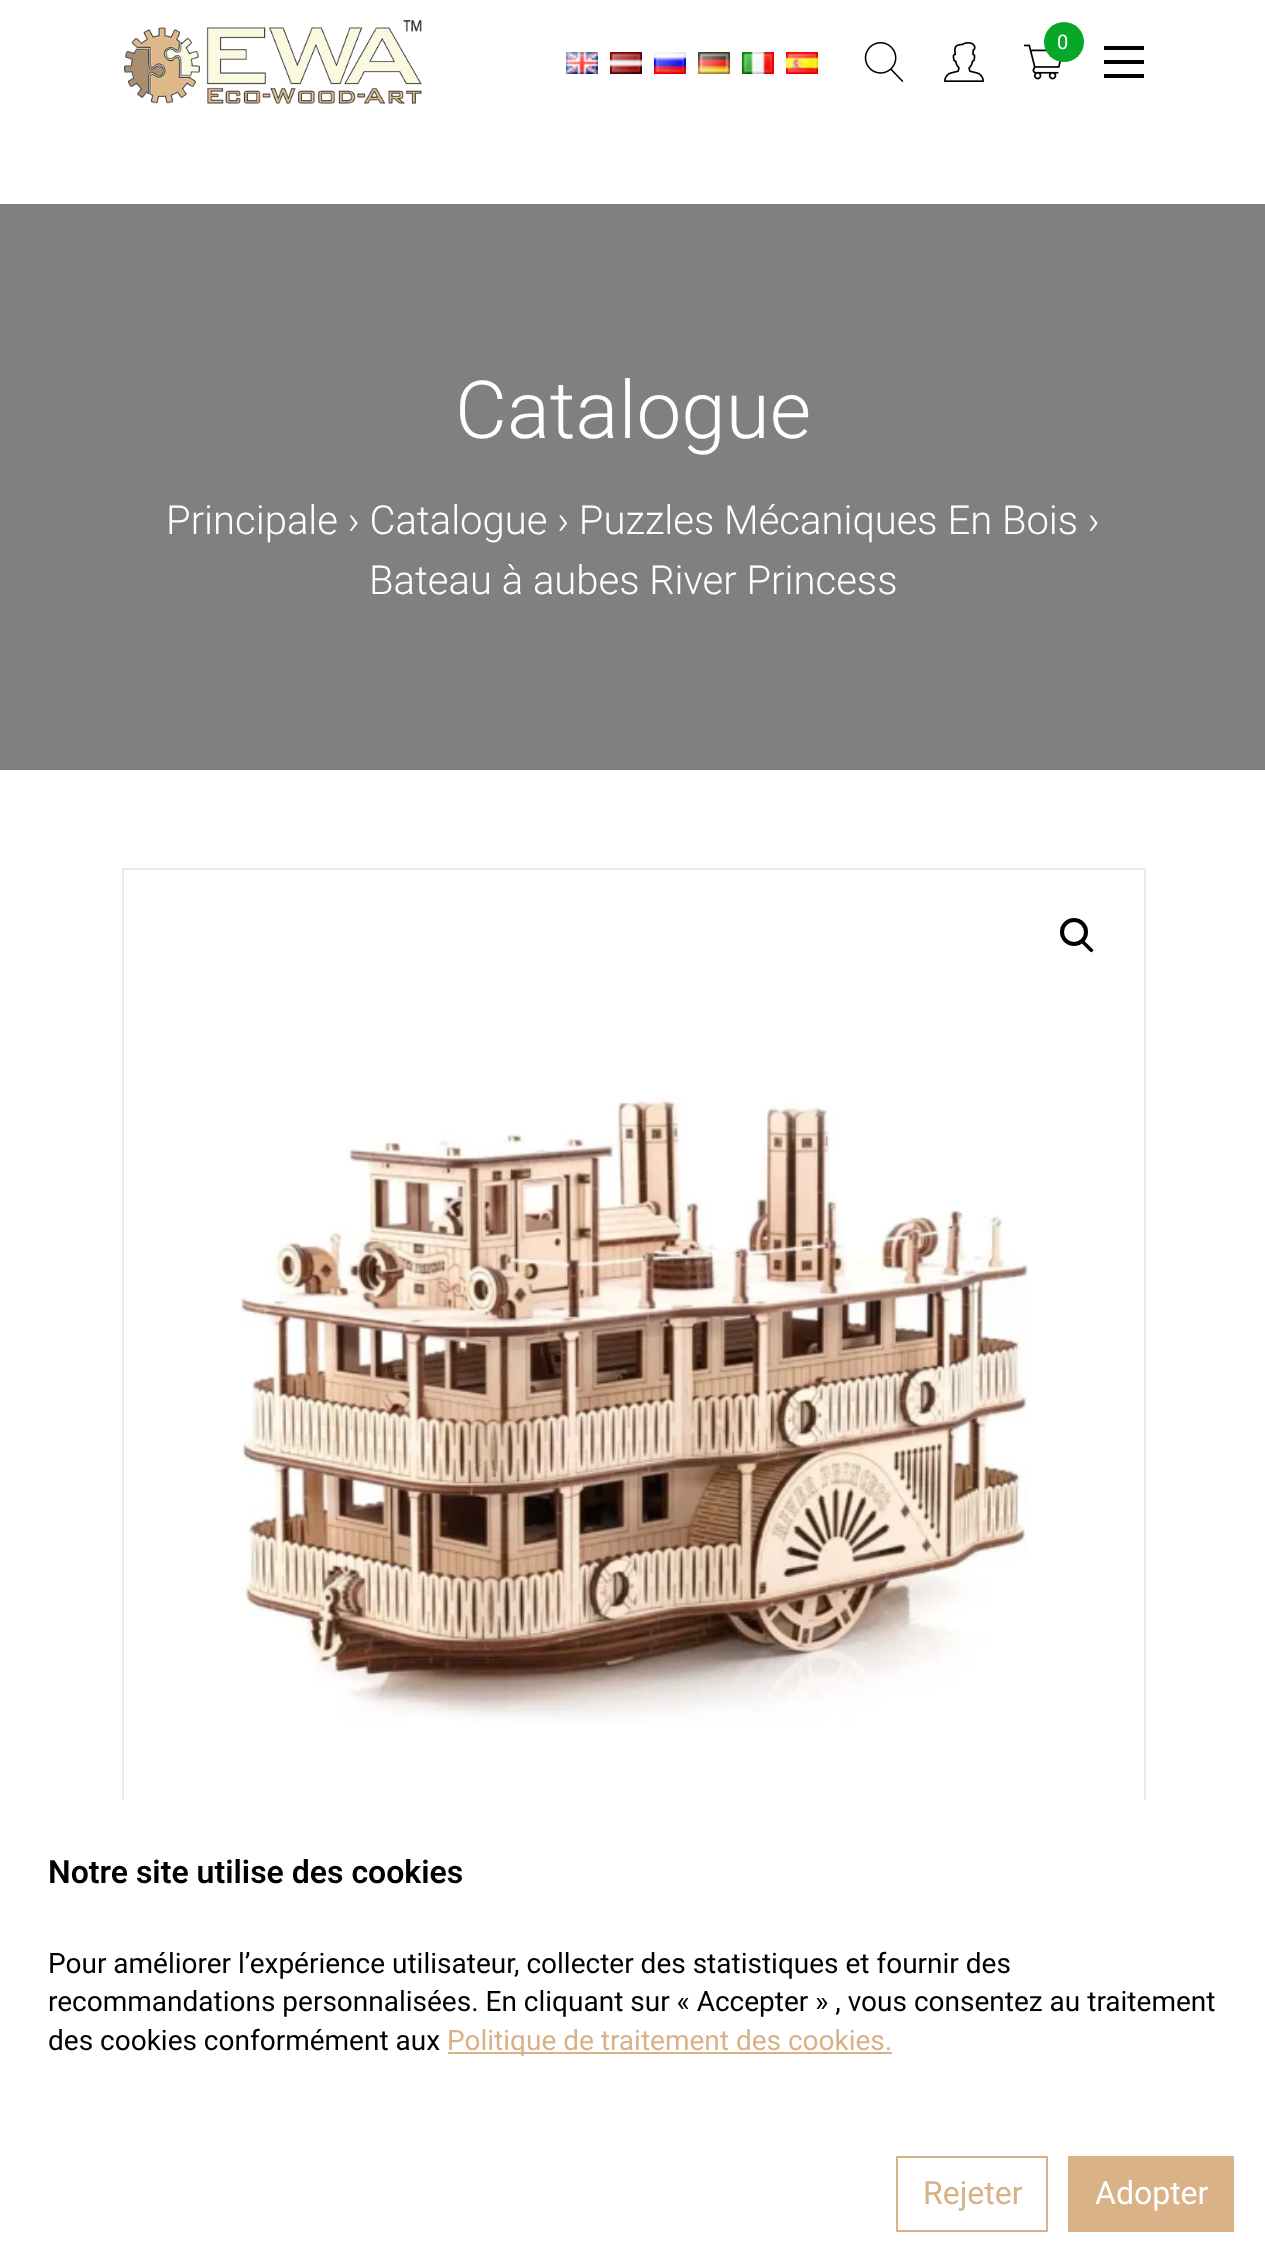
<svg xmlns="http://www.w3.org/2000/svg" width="1265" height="2263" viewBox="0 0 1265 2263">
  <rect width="100%" height="100%" fill="#fff"/>
  <image x="124" y="20" width="298" height="84" href="img/1.png"/>
  <image x="566" y="52" width="32" height="22" href="img/2.png"/>
  <image x="610" y="52" width="32" height="22" href="img/3.png"/>
  <image x="654" y="52" width="32" height="22" href="img/4.png"/>
  <image x="698" y="52" width="32" height="22" href="img/5.png"/>
  <image x="742" y="52" width="32" height="22" href="img/6.png"/>
  <image x="786" y="52" width="32" height="22" href="img/7.png"/>
  <image x="864" y="42" width="40" height="40" href="img/8.png"/>
  <image x="944" y="42" width="40" height="40" href="img/9.png"/>
  <image x="1024" y="44" width="38" height="36" href="img/10.png"/>
  <circle cx="1064" cy="42" r="20" fill="#09a729"/>
  <path d="M1104 46h40v4H1104z" fill="#000"/>
  <path d="M1104 60h40v4H1104z" fill="#000"/>
  <path d="M1104 74h40v4H1104z" fill="#000"/>
  <path d="M0 204h1265v566H0z" fill="#808080"/>
  <path d="M123 869h1022v1002H123z" fill="none" stroke="#e9ecef" stroke-width="2"/>
  <image x="240" y="1097" width="788" height="626" href="img/11.png"/>
  <circle cx="1074" cy="932" r="12" fill="none" stroke="#000" stroke-width="4"/>
  <path d="M1081.5 940.5C1082 939.5 1083.5 939.5 1084 940.5L1092.5 949C1093.5 949.5 1093.5 951 1092.5 951.5C1092 952.5 1090.5 952.5 1090 951.5L1081.5 943C1080.5 942.5 1080.5 941 1081.5 940.5Z" fill="#000"/>
  <path d="M122 1800h1024v72H122z" fill="#fff"/>
  <path d="M448 2052h444v2H448z" fill="#d9b188"/>
  <path d="M897 2157h150v74H897z" fill="none" stroke="#d9b287" stroke-width="2"/>
  <path d="M1068 2156h166v76H1068z" fill="#d9b287"/>
  <text x="1057" y="49" font-family="Roboto" font-size="20" fill="#fff">0</text>
  <text x="455" y="438" font-family="Roboto" font-size="80" font-weight="300" fill="#fff">Catalogue</text>
  <g font-family="Roboto" font-size="40" font-weight="300" fill="#fff">
    <text x="166" y="534">Principale › Catalogue › Puzzles Mécaniques En Bois ›</text>
    <text x="369" y="594">Bateau à aubes River Princess</text>
  </g>
  <text x="48" y="1883" font-family="Roboto" font-size="32" font-weight="600" fill="#000">Notre site utilise des cookies</text>
  <g font-family="Roboto" font-size="28" fill="#000">
    <text x="48" y="1973">Pour améliorer l’expérience utilisateur, collecter des statistiques et fournir des</text>
    <text x="48" y="2011">recommandations personnalisées. En cliquant sur « Accepter » , vous consentez au traitement</text>
    <text x="48" y="2050">des cookies conformément aux</text>
  </g>
  <text x="447" y="2050" font-family="Roboto" font-size="28" fill="#d9b188">Politique de traitement des cookies.</text>
  <text x="923" y="2204" font-family="Roboto" font-size="32" fill="#d9b188">Rejeter</text>
  <text x="1095" y="2204" font-family="Roboto" font-size="32" fill="#fff">Adopter</text>
</svg>
